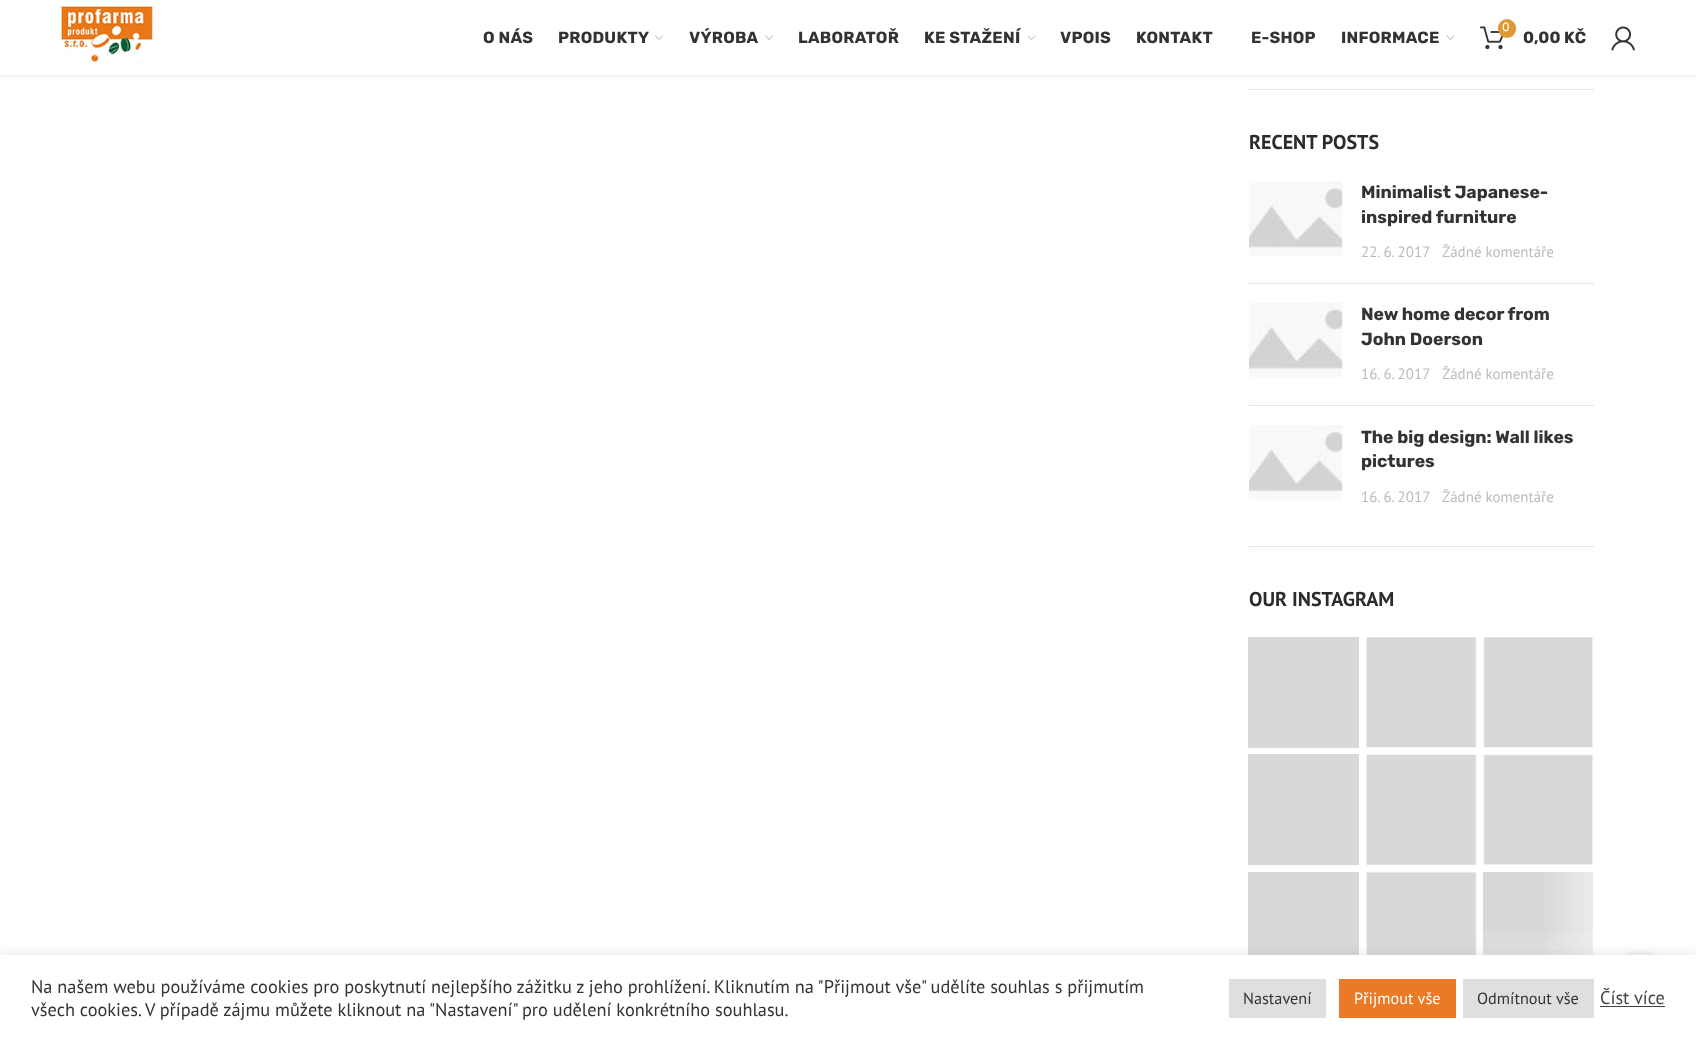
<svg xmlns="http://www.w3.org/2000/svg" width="1696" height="1041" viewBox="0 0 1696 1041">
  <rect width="100%" height="100%" fill="#fff"/>
  <path d="M0 1h1696v75H0z" fill="#0000001a" filter="blur(2px)"/>
  <path d="M0 0h1696v75H0z" fill="#fff"/>
  <image x="61" y="6" width="92" height="57" href="img/1.png"/>
  <image x="655" y="35" width="8" height="5" href="img/2.png"/>
  <image x="765" y="35" width="8" height="5" href="img/2.png"/>
  <image x="1027" y="35" width="9" height="5" href="img/3.png"/>
  <image x="1446" y="35" width="9" height="5" href="img/4.png"/>
  <image x="1480" y="26" width="23" height="24" href="img/5.png"/>
  <rect x="1498" y="19" width="18" height="19" rx="9" fill="#d93"/>
  <image x="1611" y="26" width="24" height="25" href="img/6.png"/>
  <path d="M1249 89h345v1H1249z" fill="#e6e6e6"/>
  <path d="M1249 546h345v1H1249z" fill="#e6e6e6"/>
  <path d="M1249 283h345v1H1249z" fill="#e6e6e6"/>
  <image x="1249" y="181" width="94" height="75" href="img/7.png"/>
  <path d="M1249 405h345v1H1249z" fill="#e6e6e6"/>
  <image x="1249" y="303" width="94" height="74" href="img/8.png"/>
  <image x="1249" y="425" width="94" height="75" href="img/9.png"/>
  <path d="M1248 637h111v111H1248z" fill="#d8d8d8"/>
  <image x="1366" y="637" width="111" height="111" href="img/10.png"/>
  <image x="1483" y="637" width="110" height="111" href="img/11.png"/>
  <path d="M1248 754h111v111H1248z" fill="#d8d8d8"/>
  <image x="1366" y="754" width="111" height="111" href="img/12.png"/>
  <image x="1483" y="754" width="110" height="111" href="img/13.png"/>
  <path d="M1248 872h111v83H1248z" fill="#d8d8d8"/>
  <image x="1366" y="872" width="111" height="83" href="img/14.png"/>
  <image x="1483" y="872" width="110" height="83" href="img/15.png"/>
  <rect x="1609" y="954" width="62" height="62" rx="31" fill="#0000002b" filter="blur(3px)"/>
  <circle cx="1640" cy="985" r="31" fill="#ffffffe6"/>
  <path d="M0 954h1696v86H0z" fill="#acabab4d" filter="blur(6px)"/>
  <path d="M0 955h1696v86H0z" fill="#fff"/>
  <path d="M1229 979h97v39H1229z" fill="#dedfe0"/>
  <path d="M1339 979h117v39H1339z" fill="#ea7a25"/>
  <path d="M1463 979h131v39H1463z" fill="#dedfe0"/>
  <path d="M1600 1006h65v1H1600z" fill="#444"/>
  <g font-family="Rubik" font-size="16.25" font-weight="bold" letter-spacing="0.25" fill="#333">
    <text x="483" y="43">O NÁS</text>
    <text x="558" y="43">PRODUKTY</text>
    <text x="689" y="43">VÝROBA</text>
    <text x="798" y="43">LABORATOŘ</text>
    <text x="924" y="43">KE STAŽENÍ</text>
    <text x="1060" y="43">VPOIS</text>
    <text x="1136" y="43">KONTAKT</text>
    <text x="1251" y="43">E-SHOP</text>
    <text x="1341" y="43">INFORMACE</text>
  </g>
  <text x="1502" y="31" font-family="Rubik" font-size="12" fill="#fff">0</text>
  <text x="1523" y="43" font-family="Rubik" font-size="16.25" font-weight="bold" fill="#333">0,00 KČ</text>
  <text x="1249" y="149" font-family="PT Sans" font-size="20" font-weight="bold" fill="#2d2a2a">RECENT POSTS</text>
  <g font-family="Rubik" font-size="17.5" font-weight="bold" fill="#333">
    <text x="1361" y="198">Minimalist Japanese-</text>
    <text x="1361" y="223">inspired furniture</text>
  </g>
  <g font-family="PT Sans" font-size="15" fill="#bbb">
    <text x="1361" y="257">22. 6. 2017</text>
    <text x="1442" y="257">Žádné komentáře</text>
  </g>
  <g font-family="Rubik" font-size="17.5" font-weight="bold" fill="#333">
    <text x="1361" y="320">New home decor from</text>
    <text x="1361" y="345">John Doerson</text>
  </g>
  <g font-family="PT Sans" font-size="15" fill="#bbb">
    <text x="1361" y="379">16. 6. 2017</text>
    <text x="1442" y="379">Žádné komentáře</text>
  </g>
  <g font-family="Rubik" font-size="17.5" font-weight="bold" fill="#333">
    <text x="1361" y="443">The big design: Wall likes</text>
    <text x="1361" y="467">pictures</text>
  </g>
  <g font-family="PT Sans" font-size="15" fill="#bbb">
    <text x="1361" y="502">16. 6. 2017</text>
    <text x="1442" y="502">Žádné komentáře</text>
  </g>
  <text x="1249" y="606" font-family="PT Sans" font-size="20" font-weight="bold" fill="#2d2a2a">OUR INSTAGRAM</text>
  <g font-family="PT Sans" font-size="18.33" fill="#333">
    <text x="31" y="993">Na našem webu používáme cookies pro poskytnutí nejlepšího zážitku z jeho prohlížení. Kliknutím na "Přijmout vše" udělíte souhlas s přijmutím</text>
    <text x="31" y="1016">všech cookies. V případě zájmu můžete kliknout na "Nastavení" pro udělení konkrétního souhlasu.</text>
  </g>
  <text x="1243" y="1004" font-family="PT Sans" font-size="16.25" fill="#333">Nastavení</text>
  <text x="1354" y="1004" font-family="PT Sans" font-size="16.25" fill="#fff">Přijmout vše</text>
  <text x="1477" y="1004" font-family="PT Sans" font-size="16.25" fill="#333">Odmítnout vše</text>
  <text x="1600" y="1004" font-family="PT Sans" font-size="18.33" fill="#444">Číst více</text>
</svg>
